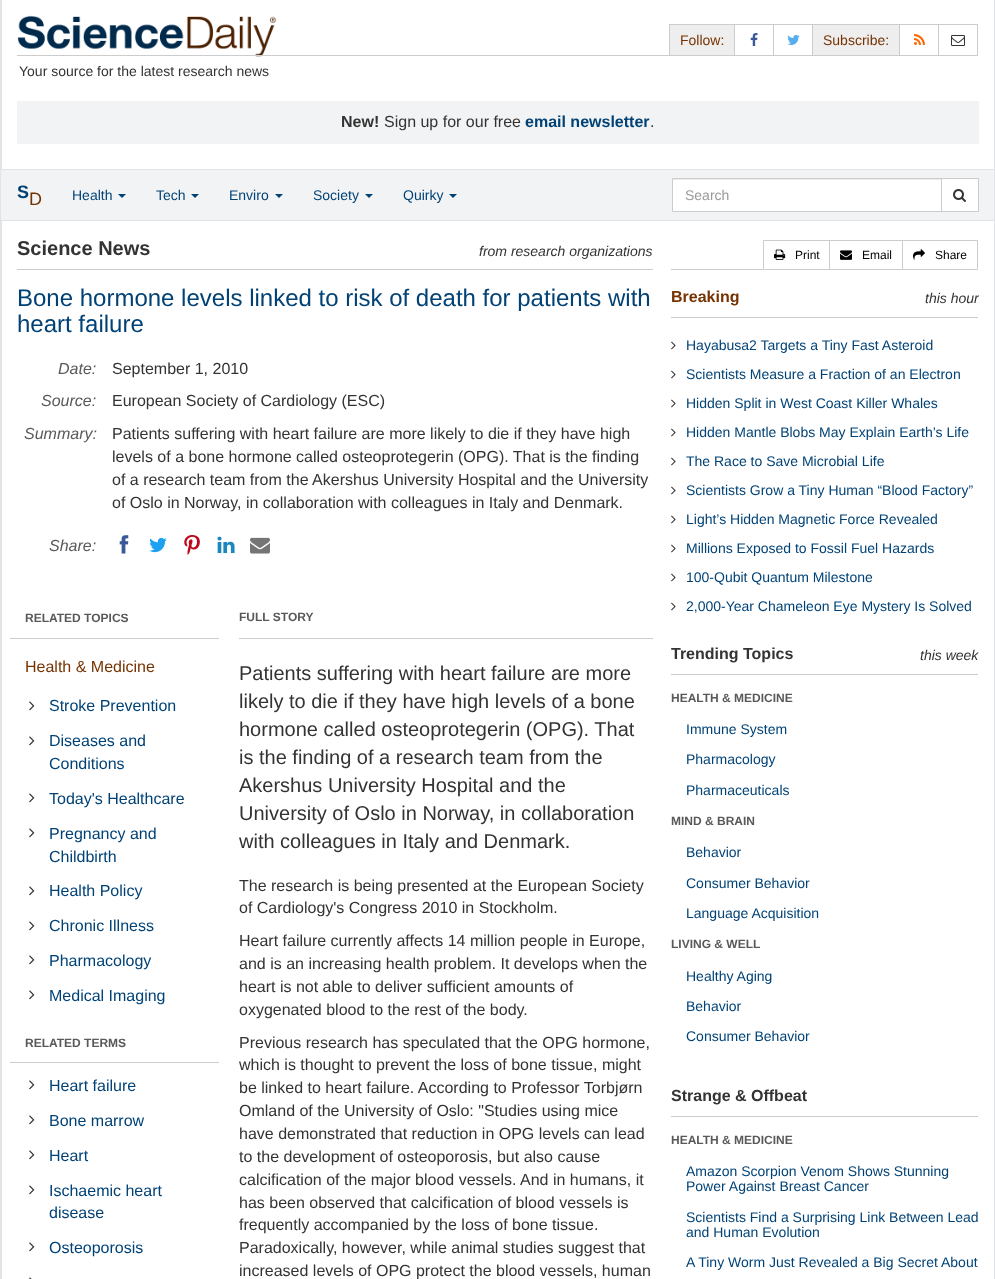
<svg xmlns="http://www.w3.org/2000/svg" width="995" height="1279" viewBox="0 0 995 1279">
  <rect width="100%" height="100%" fill="#e2e3e6"/>
  <path d="M2 0h992v169H2z" fill="#fff"/>
  <path d="M670 25h64v30H670z" fill="#eee"/>
  <path d="M669 24h309v1H669z" fill="#ccc"/>
  <path d="M669 24h1v31H669z" fill="#ccc"/>
  <path d="M734 24h1v31H734z" fill="#ccc"/>
  <image x="750" y="33" width="8" height="13" href="img/1.png"/>
  <path d="M773 24h1v31H773z" fill="#ccc"/>
  <image x="787" y="35" width="13" height="10" href="img/2.png"/>
  <path d="M813 25h86v30H813z" fill="#eee"/>
  <path d="M812 24h1v31H812z" fill="#ccc"/>
  <path d="M899 24h1v31H899z" fill="#ccc"/>
  <image x="914" y="34" width="11" height="11" href="img/3.png"/>
  <path d="M977 24h1v31H977z" fill="#ccc"/>
  <path d="M938 24h1v31H938z" fill="#ccc"/>
  <image x="951" y="35" width="14" height="11" href="img/4.png"/>
  <image x="17" y="15" width="260" height="42" href="img/5.png"/>
  <path d="M17 55h961v1H17z" fill="#ccc"/>
  <path d="M17 101h962v43H17z" fill="#f2f3f4"/>
  <path d="M1 170h993v50H1z" fill="#f2f3f4"/>
  <path d="M118 194H126L122 198Z" fill="#004276"/>
  <path d="M191 194H199L195 198Z" fill="#004276"/>
  <path d="M275 194H283L279 198Z" fill="#004276"/>
  <path d="M365 194H373L369 198Z" fill="#004276"/>
  <path d="M449 194H457L453 198Z" fill="#004276"/>
  <path d="M942 179h36v32H942z" fill="#fff"/>
  <path d="M940.5 178.5h38v33H940.5z" fill="none" stroke="#ccc"/>
  <path d="M673 180h268v31H673z" fill="#fff"/>
  <path d="M673 179h268v1H673z" fill="#ececec"/>
  <path d="M672.5 178.5h269v33H672.5z" fill="none" stroke="#ccc"/>
  <image x="953" y="189" width="13" height="13" href="img/6.png"/>
  <path d="M2 221h992v1058H2z" fill="#fff"/>
  <path d="M17 269h636v1H17z" fill="#ccc"/>
  <image x="119" y="535" width="10" height="19" href="img/7.png"/>
  <image x="149" y="537" width="18" height="16" href="img/8.png"/>
  <image x="184" y="535" width="16" height="20" href="img/9.png"/>
  <image x="217" y="536" width="18" height="18" href="img/10.png"/>
  <image x="250" y="537" width="20" height="17" href="img/11.png"/>
  <path d="M10 638h209v1H10z" fill="#ccc"/>
  <image x="29" y="701" width="6" height="10" href="img/12.png"/>
  <image x="29" y="736" width="6" height="10" href="img/12.png"/>
  <image x="29" y="793" width="6" height="10" href="img/12.png"/>
  <image x="29" y="828" width="6" height="10" href="img/12.png"/>
  <image x="29" y="886" width="6" height="10" href="img/12.png"/>
  <image x="29" y="921" width="6" height="10" href="img/12.png"/>
  <image x="29" y="955" width="6" height="10" href="img/12.png"/>
  <image x="29" y="990" width="6" height="10" href="img/12.png"/>
  <path d="M10 1062h209v1H10z" fill="#ccc"/>
  <image x="29" y="1080" width="6" height="10" href="img/12.png"/>
  <image x="29" y="1115" width="6" height="10" href="img/12.png"/>
  <image x="29" y="1150" width="6" height="10" href="img/12.png"/>
  <image x="29" y="1185" width="6" height="10" href="img/12.png"/>
  <image x="29" y="1242" width="6" height="10" href="img/12.png"/>
  <image x="29" y="1277" width="3" height="2" href="img/13.png"/>
  <path d="M239 638h414v1H239z" fill="#ccc"/>
  <path d="M763.5 240.5h66v29H763.5z" fill="none" stroke="#ccc"/>
  <image x="774" y="249" width="12" height="11" href="img/14.png"/>
  <path d="M829.5 240.5h73v29H829.5z" fill="none" stroke="#ccc"/>
  <image x="840" y="250" width="12" height="10" href="img/15.png"/>
  <path d="M902.5 240.5h75v29H902.5z" fill="none" stroke="#ccc"/>
  <image x="913" y="249" width="12" height="11" href="img/16.png"/>
  <path d="M671 269h92v1H671z" fill="#ccc"/>
  <path d="M671 317h307v1H671z" fill="#ccc"/>
  <image x="671" y="341" width="5" height="9" href="img/17.png"/>
  <image x="671" y="370" width="5" height="9" href="img/17.png"/>
  <image x="671" y="399" width="5" height="9" href="img/17.png"/>
  <image x="671" y="428" width="5" height="9" href="img/17.png"/>
  <image x="671" y="457" width="5" height="9" href="img/17.png"/>
  <image x="671" y="486" width="5" height="9" href="img/17.png"/>
  <image x="671" y="515" width="5" height="9" href="img/17.png"/>
  <image x="671" y="544" width="5" height="9" href="img/17.png"/>
  <image x="671" y="573" width="5" height="9" href="img/17.png"/>
  <image x="671" y="602" width="5" height="9" href="img/17.png"/>
  <path d="M671 674h307v1H671z" fill="#ccc"/>
  <path d="M671 1116h307v1H671z" fill="#ccc"/>
  <g font-family="Liberation Sans" font-size="14" fill="#763300">
    <text x="680" y="45">Follow:</text>
    <text x="823" y="45">Subscribe:</text>
  </g>
  <text x="19" y="76" font-family="Liberation Sans" font-size="14" fill="#333">Your source for the latest research news</text>
  <text x="341" y="127" font-family="Liberation Sans" font-size="16" font-weight="bold" fill="#333">New!</text>
  <text x="384" y="127" font-family="Liberation Sans" font-size="16" fill="#333">Sign up for our free</text>
  <text x="525" y="127" font-family="Liberation Sans" font-size="16" font-weight="bold" fill="#004276">email newsletter</text>
  <text x="650" y="127" font-family="Liberation Sans" font-size="16" fill="#333">.</text>
  <text x="17" y="198" font-family="Liberation Sans" font-size="18" font-weight="bold" fill="#004276">S</text>
  <text x="29" y="205" font-family="Liberation Sans" font-size="18" fill="#763300">D</text>
  <g font-family="Liberation Sans" font-size="14" fill="#004276">
    <text x="72" y="200">Health</text>
    <text x="156" y="200">Tech</text>
    <text x="229" y="200">Enviro</text>
    <text x="313" y="200">Society</text>
    <text x="403" y="200">Quirky</text>
  </g>
  <text x="685" y="200" font-family="Liberation Sans" font-size="14" fill="#999">Search</text>
  <text x="17" y="255" font-family="Liberation Sans" font-size="20" font-weight="bold" fill="#333">Science News</text>
  <text x="479" y="256" font-family="Liberation Sans" font-size="14" font-style="italic" fill="#333">from research organizations</text>
  <g font-family="Liberation Sans" font-size="24" fill="#004276">
    <text x="17" y="306">Bone hormone levels linked to risk of death for patients with</text>
    <text x="17" y="332">heart failure</text>
  </g>
  <text x="58" y="374" font-family="Liberation Sans" font-size="16" font-style="italic" fill="#595959">Date:</text>
  <text x="112" y="374" font-family="Liberation Sans" font-size="16" fill="#333">September 1, 2010</text>
  <text x="41" y="406" font-family="Liberation Sans" font-size="16" font-style="italic" fill="#595959">Source:</text>
  <text x="112" y="406" font-family="Liberation Sans" font-size="16" fill="#333">European Society of Cardiology (ESC)</text>
  <text x="24" y="439" font-family="Liberation Sans" font-size="16" font-style="italic" fill="#595959">Summary:</text>
  <g font-family="Liberation Sans" font-size="16" fill="#333">
    <text x="112" y="439">Patients suffering with heart failure are more likely to die if they have high</text>
    <text x="112" y="462">levels of a bone hormone called osteoprotegerin (OPG). That is the finding</text>
    <text x="112" y="485">of a research team from the Akershus University Hospital and the University</text>
    <text x="112" y="508">of Oslo in Norway, in collaboration with colleagues in Italy and Denmark.</text>
  </g>
  <text x="49" y="551" font-family="Liberation Sans" font-size="16" font-style="italic" fill="#595959">Share:</text>
  <text x="25" y="622" font-family="Liberation Sans" font-size="12" font-weight="bold" fill="#595959">RELATED TOPICS</text>
  <text x="25" y="672" font-family="Liberation Sans" font-size="16" fill="#763300">Health &amp; Medicine</text>
  <g font-family="Liberation Sans" font-size="16" fill="#004276">
    <text x="49" y="711">Stroke Prevention</text>
    <text x="49" y="746">Diseases and</text>
    <text x="49" y="769">Conditions</text>
    <text x="49" y="804">Today's Healthcare</text>
    <text x="49" y="839">Pregnancy and</text>
    <text x="49" y="862">Childbirth</text>
    <text x="49" y="896">Health Policy</text>
    <text x="49" y="931">Chronic Illness</text>
    <text x="49" y="966">Pharmacology</text>
    <text x="49" y="1001">Medical Imaging</text>
  </g>
  <text x="25" y="1047" font-family="Liberation Sans" font-size="12" font-weight="bold" fill="#595959">RELATED TERMS</text>
  <g font-family="Liberation Sans" font-size="16" fill="#004276">
    <text x="49" y="1091">Heart failure</text>
    <text x="49" y="1126">Bone marrow</text>
    <text x="49" y="1161">Heart</text>
    <text x="49" y="1196">Ischaemic heart</text>
    <text x="49" y="1218">disease</text>
    <text x="49" y="1253">Osteoporosis</text>
  </g>
  <text x="239" y="621" font-family="Liberation Sans" font-size="12" font-weight="bold" fill="#595959">FULL STORY</text>
  <g font-family="Liberation Sans" font-size="20" fill="#333">
    <text x="239" y="680">Patients suffering with heart failure are more</text>
    <text x="239" y="708">likely to die if they have high levels of a bone</text>
    <text x="239" y="736">hormone called osteoprotegerin (OPG). That</text>
    <text x="239" y="764">is the finding of a research team from the</text>
    <text x="239" y="792">Akershus University Hospital and the</text>
    <text x="239" y="820">University of Oslo in Norway, in collaboration</text>
    <text x="239" y="848">with colleagues in Italy and Denmark.</text>
  </g>
  <g font-family="Liberation Sans" font-size="16" fill="#333">
    <text x="239" y="891">The research is being presented at the European Society</text>
    <text x="239" y="913">of Cardiology's Congress 2010 in Stockholm.</text>
    <text x="239" y="946">Heart failure currently affects 14 million people in Europe,</text>
    <text x="239" y="969">and is an increasing health problem. It develops when the</text>
    <text x="239" y="992">heart is not able to deliver sufficient amounts of</text>
    <text x="239" y="1015">oxygenated blood to the rest of the body.</text>
    <text x="239" y="1048">Previous research has speculated that the OPG hormone,</text>
    <text x="239" y="1070">which is thought to prevent the loss of bone tissue, might</text>
    <text x="239" y="1093">be linked to heart failure. According to Professor Torbjørn</text>
    <text x="239" y="1116">Omland of the University of Oslo: "Studies using mice</text>
    <text x="239" y="1139">have demonstrated that reduction in OPG levels can lead</text>
    <text x="239" y="1162">to the development of osteoporosis, but also cause</text>
    <text x="239" y="1185">calcification of the major blood vessels. And in humans, it</text>
    <text x="239" y="1208">has been observed that calcification of blood vessels is</text>
    <text x="239" y="1230">frequently accompanied by the loss of bone tissue.</text>
    <text x="239" y="1253">Paradoxically, however, while animal studies suggest that</text>
    <text x="239" y="1276">increased levels of OPG protect the blood vessels, human</text>
  </g>
  <g font-family="Liberation Sans" font-size="12" fill="#000">
    <text x="795" y="259">Print</text>
    <text x="862" y="259">Email</text>
    <text x="935" y="259">Share</text>
  </g>
  <text x="671" y="302" font-family="Liberation Sans" font-size="16" font-weight="bold" fill="#763300">Breaking</text>
  <text x="925" y="303" font-family="Liberation Sans" font-size="14" font-style="italic" fill="#333">this hour</text>
  <g font-family="Liberation Sans" font-size="14" fill="#004276">
    <text x="686" y="350">Hayabusa2 Targets a Tiny Fast Asteroid</text>
    <text x="686" y="379">Scientists Measure a Fraction of an Electron</text>
    <text x="686" y="408">Hidden Split in West Coast Killer Whales</text>
    <text x="686" y="437">Hidden Mantle Blobs May Explain Earth’s Life</text>
    <text x="686" y="466">The Race to Save Microbial Life</text>
    <text x="686" y="495">Scientists Grow a Tiny Human “Blood Factory”</text>
    <text x="686" y="524">Light’s Hidden Magnetic Force Revealed</text>
    <text x="686" y="553">Millions Exposed to Fossil Fuel Hazards</text>
    <text x="686" y="582">100-Qubit Quantum Milestone</text>
    <text x="686" y="611">2,000-Year Chameleon Eye Mystery Is Solved</text>
  </g>
  <text x="671" y="659" font-family="Liberation Sans" font-size="16" font-weight="bold" fill="#333">Trending Topics</text>
  <text x="920" y="660" font-family="Liberation Sans" font-size="14" font-style="italic" fill="#333">this week</text>
  <text x="671" y="702" font-family="Liberation Sans" font-size="12" font-weight="bold" fill="#595959">HEALTH &amp; MEDICINE</text>
  <g font-family="Liberation Sans" font-size="14" fill="#004276">
    <text x="686" y="734">Immune System</text>
    <text x="686" y="764">Pharmacology</text>
    <text x="686" y="795">Pharmaceuticals</text>
  </g>
  <text x="671" y="825" font-family="Liberation Sans" font-size="12" font-weight="bold" fill="#595959">MIND &amp; BRAIN</text>
  <g font-family="Liberation Sans" font-size="14" fill="#004276">
    <text x="686" y="857">Behavior</text>
    <text x="686" y="888">Consumer Behavior</text>
    <text x="686" y="918">Language Acquisition</text>
  </g>
  <text x="671" y="948" font-family="Liberation Sans" font-size="12" font-weight="bold" fill="#595959">LIVING &amp; WELL</text>
  <g font-family="Liberation Sans" font-size="14" fill="#004276">
    <text x="686" y="981">Healthy Aging</text>
    <text x="686" y="1011">Behavior</text>
    <text x="686" y="1041">Consumer Behavior</text>
  </g>
  <text x="671" y="1101" font-family="Liberation Sans" font-size="16" font-weight="bold" fill="#333">Strange &amp; Offbeat</text>
  <text x="671" y="1144" font-family="Liberation Sans" font-size="12" font-weight="bold" fill="#595959">HEALTH &amp; MEDICINE</text>
  <g font-family="Liberation Sans" font-size="14" fill="#004276">
    <text x="686" y="1176">Amazon Scorpion Venom Shows Stunning</text>
    <text x="686" y="1191">Power Against Breast Cancer</text>
    <text x="686" y="1222">Scientists Find a Surprising Link Between Lead</text>
    <text x="686" y="1237">and Human Evolution</text>
    <text x="686" y="1267">A Tiny Worm Just Revealed a Big Secret About</text>
  </g>
</svg>
